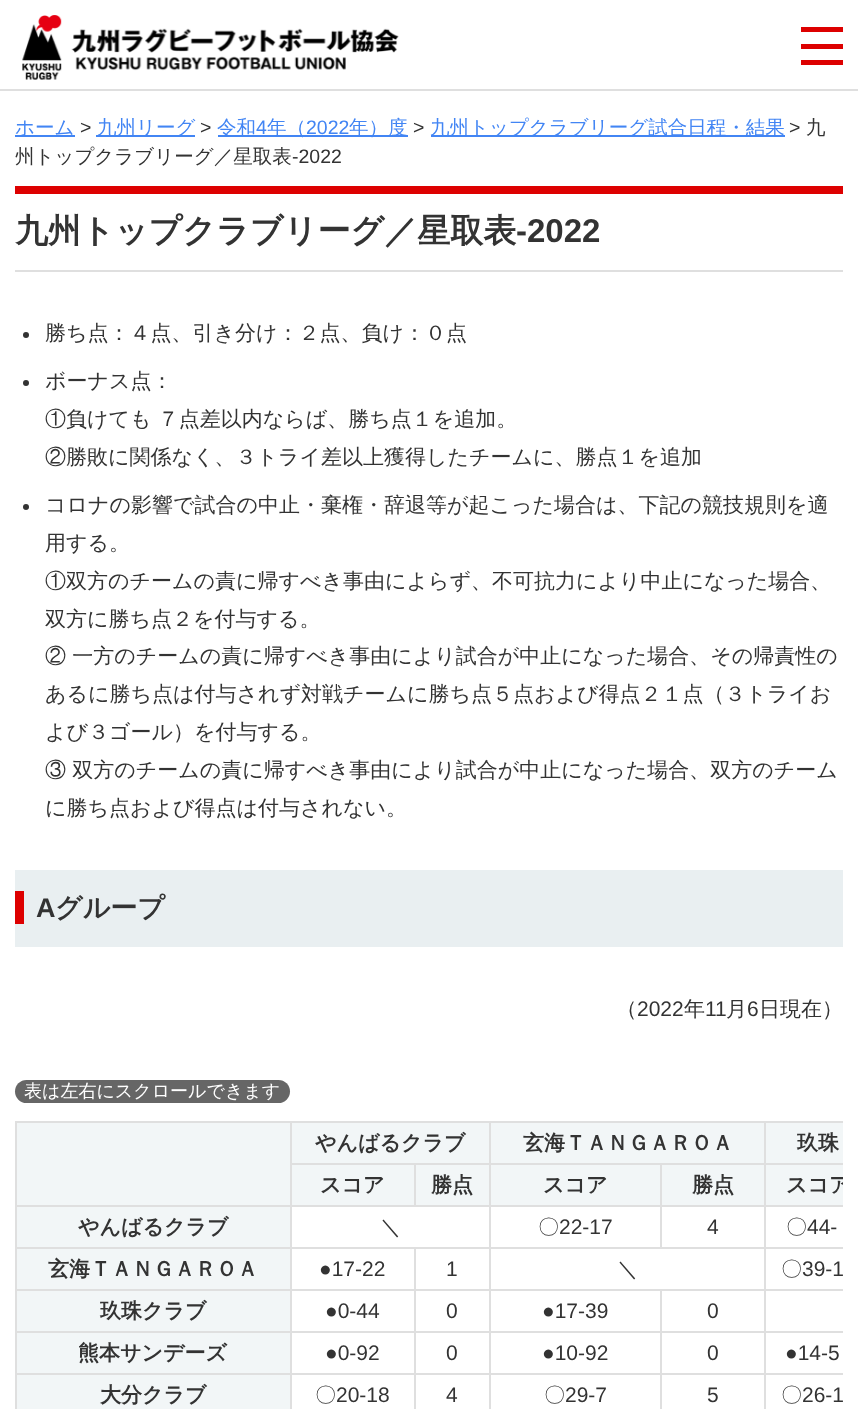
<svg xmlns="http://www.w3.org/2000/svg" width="858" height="1409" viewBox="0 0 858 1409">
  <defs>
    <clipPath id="clip1"><path d="M15 1079h828v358H15z"/></clipPath>
  </defs>
  <rect width="100%" height="100%" fill="#fff"/>
  <path d="M0 89h858v2H0z" fill="#dfdfdf"/>
  <image x="22" y="15" width="377" height="65" href="img/1.png"/>
  <path d="M801 27h42v5H801z" fill="#d00"/>
  <path d="M801 44h42v5H801z" fill="#d00"/>
  <path d="M801 60h42v5H801z" fill="#d00"/>
  <path d="M15 135h60v2H15z" fill="#4285f4"/>
  <path d="M96 135h99v2H96z" fill="#4285f4"/>
  <path d="M218 135h190v2H218z" fill="#4285f4"/>
  <path d="M431 135h354v2H431z" fill="#4285f4"/>
  <path d="M15 186h828v8H15z" fill="#d00"/>
  <path d="M15 270h828v2H15z" fill="#dfdfdf"/>
  <circle cx="26" cy="335" r="3" fill="#333"/>
  <circle cx="26" cy="383" r="3" fill="#333"/>
  <circle cx="26" cy="507" r="3" fill="#333"/>
  <path d="M15 870h828v77H15z" fill="#e9eff1"/>
  <path d="M15 891h9v33H15z" fill="#d00"/>
  <rect x="15" y="1080" width="275" height="23" rx="11.5" fill="#666"/>
  <path d="M15 1121h828v2H15z" fill="#dfdfdf"/>
  <path d="M15 1121h2v288H15z" fill="#dfdfdf"/>
  <path d="M17 1123h273v82H17z" fill="#f2f6f7"/>
  <path d="M292 1123h197v40H292z" fill="#f2f6f7"/>
  <path d="M491 1123h273v40H491z" fill="#f2f6f7"/>
  <path d="M764 1163h79v2H764z" fill="#dfdfdf"/>
  <path d="M764 1205h79v2H764z" fill="#dfdfdf"/>
  <path d="M764 1247h79v2H764z" fill="#dfdfdf"/>
  <path d="M764 1289h79v2H764z" fill="#dfdfdf"/>
  <path d="M764 1331h79v2H764z" fill="#dfdfdf"/>
  <path d="M764 1373h79v2H764z" fill="#dfdfdf"/>
  <path d="M764 1373h2v36H764z" fill="#dfdfdf"/>
  <path d="M660 1373h105v2H660z" fill="#dfdfdf"/>
  <path d="M764 1331h2v43H764z" fill="#dfdfdf"/>
  <path d="M660 1331h105v2H660z" fill="#dfdfdf"/>
  <path d="M764 1289h2v43H764z" fill="#dfdfdf"/>
  <path d="M660 1289h105v2H660z" fill="#dfdfdf"/>
  <path d="M764 1247h2v43H764z" fill="#dfdfdf"/>
  <path d="M489 1247h276v2H489z" fill="#dfdfdf"/>
  <path d="M764 1205h2v43H764z" fill="#dfdfdf"/>
  <path d="M660 1205h105v2H660z" fill="#dfdfdf"/>
  <path d="M764 1163h2v43H764z" fill="#dfdfdf"/>
  <path d="M660 1163h105v2H660z" fill="#dfdfdf"/>
  <path d="M660 1205h2v43H660z" fill="#dfdfdf"/>
  <path d="M489 1205h173v2H489z" fill="#dfdfdf"/>
  <path d="M660 1163h2v43H660z" fill="#dfdfdf"/>
  <path d="M489 1163h173v2H489z" fill="#dfdfdf"/>
  <path d="M660 1373h2v36H660z" fill="#dfdfdf"/>
  <path d="M489 1373h173v2H489z" fill="#dfdfdf"/>
  <path d="M660 1331h2v43H660z" fill="#dfdfdf"/>
  <path d="M489 1331h173v2H489z" fill="#dfdfdf"/>
  <path d="M660 1289h2v43H660z" fill="#dfdfdf"/>
  <path d="M489 1289h173v2H489z" fill="#dfdfdf"/>
  <path d="M489 1373h2v36H489z" fill="#dfdfdf"/>
  <path d="M414 1373h77v2H414z" fill="#dfdfdf"/>
  <path d="M489 1331h2v43H489z" fill="#dfdfdf"/>
  <path d="M414 1331h77v2H414z" fill="#dfdfdf"/>
  <path d="M489 1289h2v43H489z" fill="#dfdfdf"/>
  <path d="M414 1289h77v2H414z" fill="#dfdfdf"/>
  <path d="M489 1247h2v43H489z" fill="#dfdfdf"/>
  <path d="M414 1247h77v2H414z" fill="#dfdfdf"/>
  <path d="M489 1205h2v43H489z" fill="#dfdfdf"/>
  <path d="M290 1205h201v2H290z" fill="#dfdfdf"/>
  <path d="M489 1163h2v43H489z" fill="#dfdfdf"/>
  <path d="M414 1163h77v2H414z" fill="#dfdfdf"/>
  <path d="M489 1121h2v43H489z" fill="#dfdfdf"/>
  <path d="M766 1123h77v40H766z" fill="#f2f6f7"/>
  <path d="M764 1121h2v43H764z" fill="#dfdfdf"/>
  <path d="M292 1165h122v40H292z" fill="#f2f6f7"/>
  <path d="M414 1163h2v43H414z" fill="#dfdfdf"/>
  <path d="M290 1163h126v2H290z" fill="#dfdfdf"/>
  <path d="M414 1373h2v36H414z" fill="#dfdfdf"/>
  <path d="M290 1373h126v2H290z" fill="#dfdfdf"/>
  <path d="M414 1331h2v43H414z" fill="#dfdfdf"/>
  <path d="M290 1331h126v2H290z" fill="#dfdfdf"/>
  <path d="M414 1289h2v43H414z" fill="#dfdfdf"/>
  <path d="M290 1289h126v2H290z" fill="#dfdfdf"/>
  <path d="M414 1247h2v43H414z" fill="#dfdfdf"/>
  <path d="M290 1247h126v2H290z" fill="#dfdfdf"/>
  <path d="M290 1373h2v36H290z" fill="#dfdfdf"/>
  <path d="M15 1373h276v2H15z" fill="#dfdfdf"/>
  <path d="M290 1331h2v43H290z" fill="#dfdfdf"/>
  <path d="M15 1331h276v2H15z" fill="#dfdfdf"/>
  <path d="M290 1289h2v43H290z" fill="#dfdfdf"/>
  <path d="M15 1289h276v2H15z" fill="#dfdfdf"/>
  <path d="M290 1247h2v43H290z" fill="#dfdfdf"/>
  <path d="M15 1247h276v2H15z" fill="#dfdfdf"/>
  <path d="M290 1205h2v43H290z" fill="#dfdfdf"/>
  <path d="M15 1205h276v2H15z" fill="#dfdfdf"/>
  <path d="M290 1121h2v85H290z" fill="#dfdfdf"/>
  <path d="M416 1165h73v40H416z" fill="#f2f6f7"/>
  <path d="M491 1165h169v40H491z" fill="#f2f6f7"/>
  <path d="M662 1165h102v40H662z" fill="#f2f6f7"/>
  <path d="M766 1165h77v40H766z" fill="#f2f6f7"/>
  <path d="M17 1207h273v40H17z" fill="#f2f6f7"/>
  <path d="M17 1249h273v40H17z" fill="#f2f6f7"/>
  <path d="M17 1291h273v40H17z" fill="#f2f6f7"/>
  <path d="M17 1333h273v40H17z" fill="#f2f6f7"/>
  <path d="M17 1375h273v34H17z" fill="#f2f6f7"/>
  <text x="15" y="134" font-family="WenQuanYi Zen Hei" font-size="19.5" font-weight="500" fill="#4285f4">ホーム</text>
  <text x="80" y="134" font-family="Liberation Sans" font-size="19.5" fill="#333">&gt;</text>
  <text x="97" y="134" font-family="WenQuanYi Zen Hei" font-size="19.5" font-weight="500" fill="#4285f4">九州リーグ</text>
  <text x="200" y="134" font-family="Liberation Sans" font-size="19.5" fill="#333">&gt;</text>
  <text x="217" y="134" font-family="WenQuanYi Zen Hei" font-size="19.5" font-weight="500" fill="#4285f4">令和</text>
  <text x="256" y="134" font-family="Liberation Sans" font-size="19.5" fill="#4285f4">4</text>
  <text x="267" y="134" font-family="WenQuanYi Zen Hei" font-size="19.5" font-weight="500" fill="#4285f4">年（</text>
  <text x="306" y="134" font-family="Liberation Sans" font-size="19.5" fill="#4285f4">2022</text>
  <text x="349" y="134" font-family="WenQuanYi Zen Hei" font-size="19.5" font-weight="500" fill="#4285f4">年）度</text>
  <text x="413" y="134" font-family="Liberation Sans" font-size="19.5" fill="#333">&gt;</text>
  <text x="430" y="134" font-family="WenQuanYi Zen Hei" font-size="19.5" font-weight="500" fill="#4285f4">九州トップクラブリーグ試合日程・結果</text>
  <text x="789" y="134" font-family="Liberation Sans" font-size="19.5" fill="#333">&gt;</text>
  <g font-family="WenQuanYi Zen Hei" font-size="19.5" font-weight="500" fill="#333">
    <text x="806" y="134">九</text>
    <text x="15" y="163">州トップクラブリーグ／星取表</text>
  </g>
  <text x="292" y="163" font-family="Liberation Sans" font-size="19.5" fill="#333">-2022</text>
  <text x="15" y="242" font-family="WenQuanYi Zen Hei" font-size="33" font-weight="bold" fill="#333">九州トップクラブリーグ／星取表</text>
  <text x="516" y="242" font-family="Liberation Sans" font-size="33" font-weight="bold" fill="#333">-2022</text>
  <g font-family="WenQuanYi Zen Hei" font-size="21" font-weight="500" fill="#333">
    <text x="45" y="340">勝ち点：４点、引き分け：２点、負け：０点</text>
    <text x="45" y="388">ボーナス点：</text>
    <text x="45" y="426">①負けても ７点差以内ならば、勝ち点１を追加。</text>
    <text x="45" y="464">②勝敗に関係なく、３トライ差以上獲得したチームに、勝点１を追加</text>
    <text x="45" y="512">コロナの影響で試合の中止・棄権・辞退等が起こった場合は、下記の競技規則を適</text>
    <text x="45" y="550">用する。</text>
    <text x="45" y="588">①双方のチームの責に帰すべき事由によらず、不可抗力により中止になった場合、</text>
    <text x="45" y="626">双方に勝ち点２を付与する。</text>
    <text x="45" y="663">② 一方のチームの責に帰すべき事由により試合が中止になった場合、その帰責性の</text>
    <text x="45" y="701">あるに勝ち点は付与されず対戦チームに勝ち点５点および得点２１点（３トライお</text>
    <text x="45" y="739">よび３ゴール）を付与する。</text>
    <text x="45" y="777">③ 双方のチームの責に帰すべき事由により試合が中止になった場合、双方のチーム</text>
    <text x="45" y="815">に勝ち点および得点は付与されない。</text>
  </g>
  <text x="36" y="917" font-family="Liberation Sans" font-size="27" font-weight="bold" fill="#333">A</text>
  <text x="55" y="917" font-family="WenQuanYi Zen Hei" font-size="27" font-weight="bold" fill="#333">グループ</text>
  <text x="616" y="1016" font-family="WenQuanYi Zen Hei" font-size="21" font-weight="500" fill="#333">（</text>
  <text x="637" y="1016" font-family="Liberation Sans" font-size="21" fill="#333">2022</text>
  <text x="684" y="1016" font-family="WenQuanYi Zen Hei" font-size="21" font-weight="500" fill="#333">年</text>
  <text x="705" y="1016" font-family="Liberation Sans" font-size="21" fill="#333">11</text>
  <text x="726" y="1016" font-family="WenQuanYi Zen Hei" font-size="21" font-weight="500" fill="#333">月</text>
  <text x="747" y="1016" font-family="Liberation Sans" font-size="21" fill="#333">6</text>
  <text x="759" y="1016" font-family="WenQuanYi Zen Hei" font-size="21" font-weight="500" fill="#333">日現在）</text>
  <text x="24" y="1097" font-family="WenQuanYi Zen Hei" font-size="18" font-weight="500" fill="#fff">表は左右にスクロールできます</text>
  <g font-family="WenQuanYi Zen Hei" font-size="21" font-weight="bold" fill="#333">
    <text x="315" y="1150">やんばるクラブ</text>
    <text x="523" y="1150">玄海ＴＡＮＧＡＲＯＡ</text>
    <text x="797" y="1150">玖珠</text>
    <text x="320" y="1192">スコア</text>
    <text x="431" y="1192">勝点</text>
    <text x="543" y="1192">スコア</text>
    <text x="692" y="1192">勝点</text>
  </g>
  <g clip-path="url(#clip1)">
    <text x="786" y="1192" font-family="WenQuanYi Zen Hei" font-size="21" font-weight="bold" fill="#333">スコア</text>
  </g>
  <text x="78" y="1234" font-family="WenQuanYi Zen Hei" font-size="21" font-weight="bold" fill="#333">やんばるクラブ</text>
  <g font-family="WenQuanYi Zen Hei" font-size="21" font-weight="500" fill="#333">
    <text x="380" y="1234">＼</text>
    <text x="538" y="1234">〇</text>
  </g>
  <g font-family="Liberation Sans" font-size="21" fill="#333">
    <text x="559" y="1234">22-17</text>
    <text x="707" y="1234">4</text>
  </g>
  <text x="786" y="1234" font-family="WenQuanYi Zen Hei" font-size="21" font-weight="500" fill="#333">〇</text>
  <text x="807" y="1234" font-family="Liberation Sans" font-size="21" fill="#333">44-</text>
  <text x="48" y="1276" font-family="WenQuanYi Zen Hei" font-size="21" font-weight="bold" fill="#333">玄海ＴＡＮＧＡＲＯＡ</text>
  <g font-family="Liberation Sans" font-size="21" fill="#333">
    <text x="319" y="1276">●17-22</text>
    <text x="446" y="1276">1</text>
  </g>
  <g font-family="WenQuanYi Zen Hei" font-size="21" font-weight="500" fill="#333">
    <text x="617" y="1276">＼</text>
    <text x="781" y="1276">〇</text>
  </g>
  <text x="802" y="1276" font-family="Liberation Sans" font-size="21" fill="#333">39-1</text>
  <text x="100" y="1318" font-family="WenQuanYi Zen Hei" font-size="21" font-weight="bold" fill="#333">玖珠クラブ</text>
  <g font-family="Liberation Sans" font-size="21" fill="#333">
    <text x="325" y="1318">●0-44</text>
    <text x="446" y="1318">0</text>
    <text x="542" y="1318">●17-39</text>
    <text x="707" y="1318">0</text>
  </g>
  <text x="78" y="1360" font-family="WenQuanYi Zen Hei" font-size="21" font-weight="bold" fill="#333">熊本サンデーズ</text>
  <g font-family="Liberation Sans" font-size="21" fill="#333">
    <text x="325" y="1360">●0-92</text>
    <text x="446" y="1360">0</text>
    <text x="542" y="1360">●10-92</text>
    <text x="707" y="1360">0</text>
    <text x="785" y="1360">●14-5</text>
  </g>
  <text x="100" y="1402" font-family="WenQuanYi Zen Hei" font-size="21" font-weight="bold" fill="#333">大分クラブ</text>
  <text x="315" y="1402" font-family="WenQuanYi Zen Hei" font-size="21" font-weight="500" fill="#333">〇</text>
  <g font-family="Liberation Sans" font-size="21" fill="#333">
    <text x="336" y="1402">20-18</text>
    <text x="446" y="1402">4</text>
  </g>
  <text x="544" y="1402" font-family="WenQuanYi Zen Hei" font-size="21" font-weight="500" fill="#333">〇</text>
  <g font-family="Liberation Sans" font-size="21" fill="#333">
    <text x="565" y="1402">29-7</text>
    <text x="707" y="1402">5</text>
  </g>
  <text x="781" y="1402" font-family="WenQuanYi Zen Hei" font-size="21" font-weight="500" fill="#333">〇</text>
  <text x="802" y="1402" font-family="Liberation Sans" font-size="21" fill="#333">26-1</text>
</svg>
